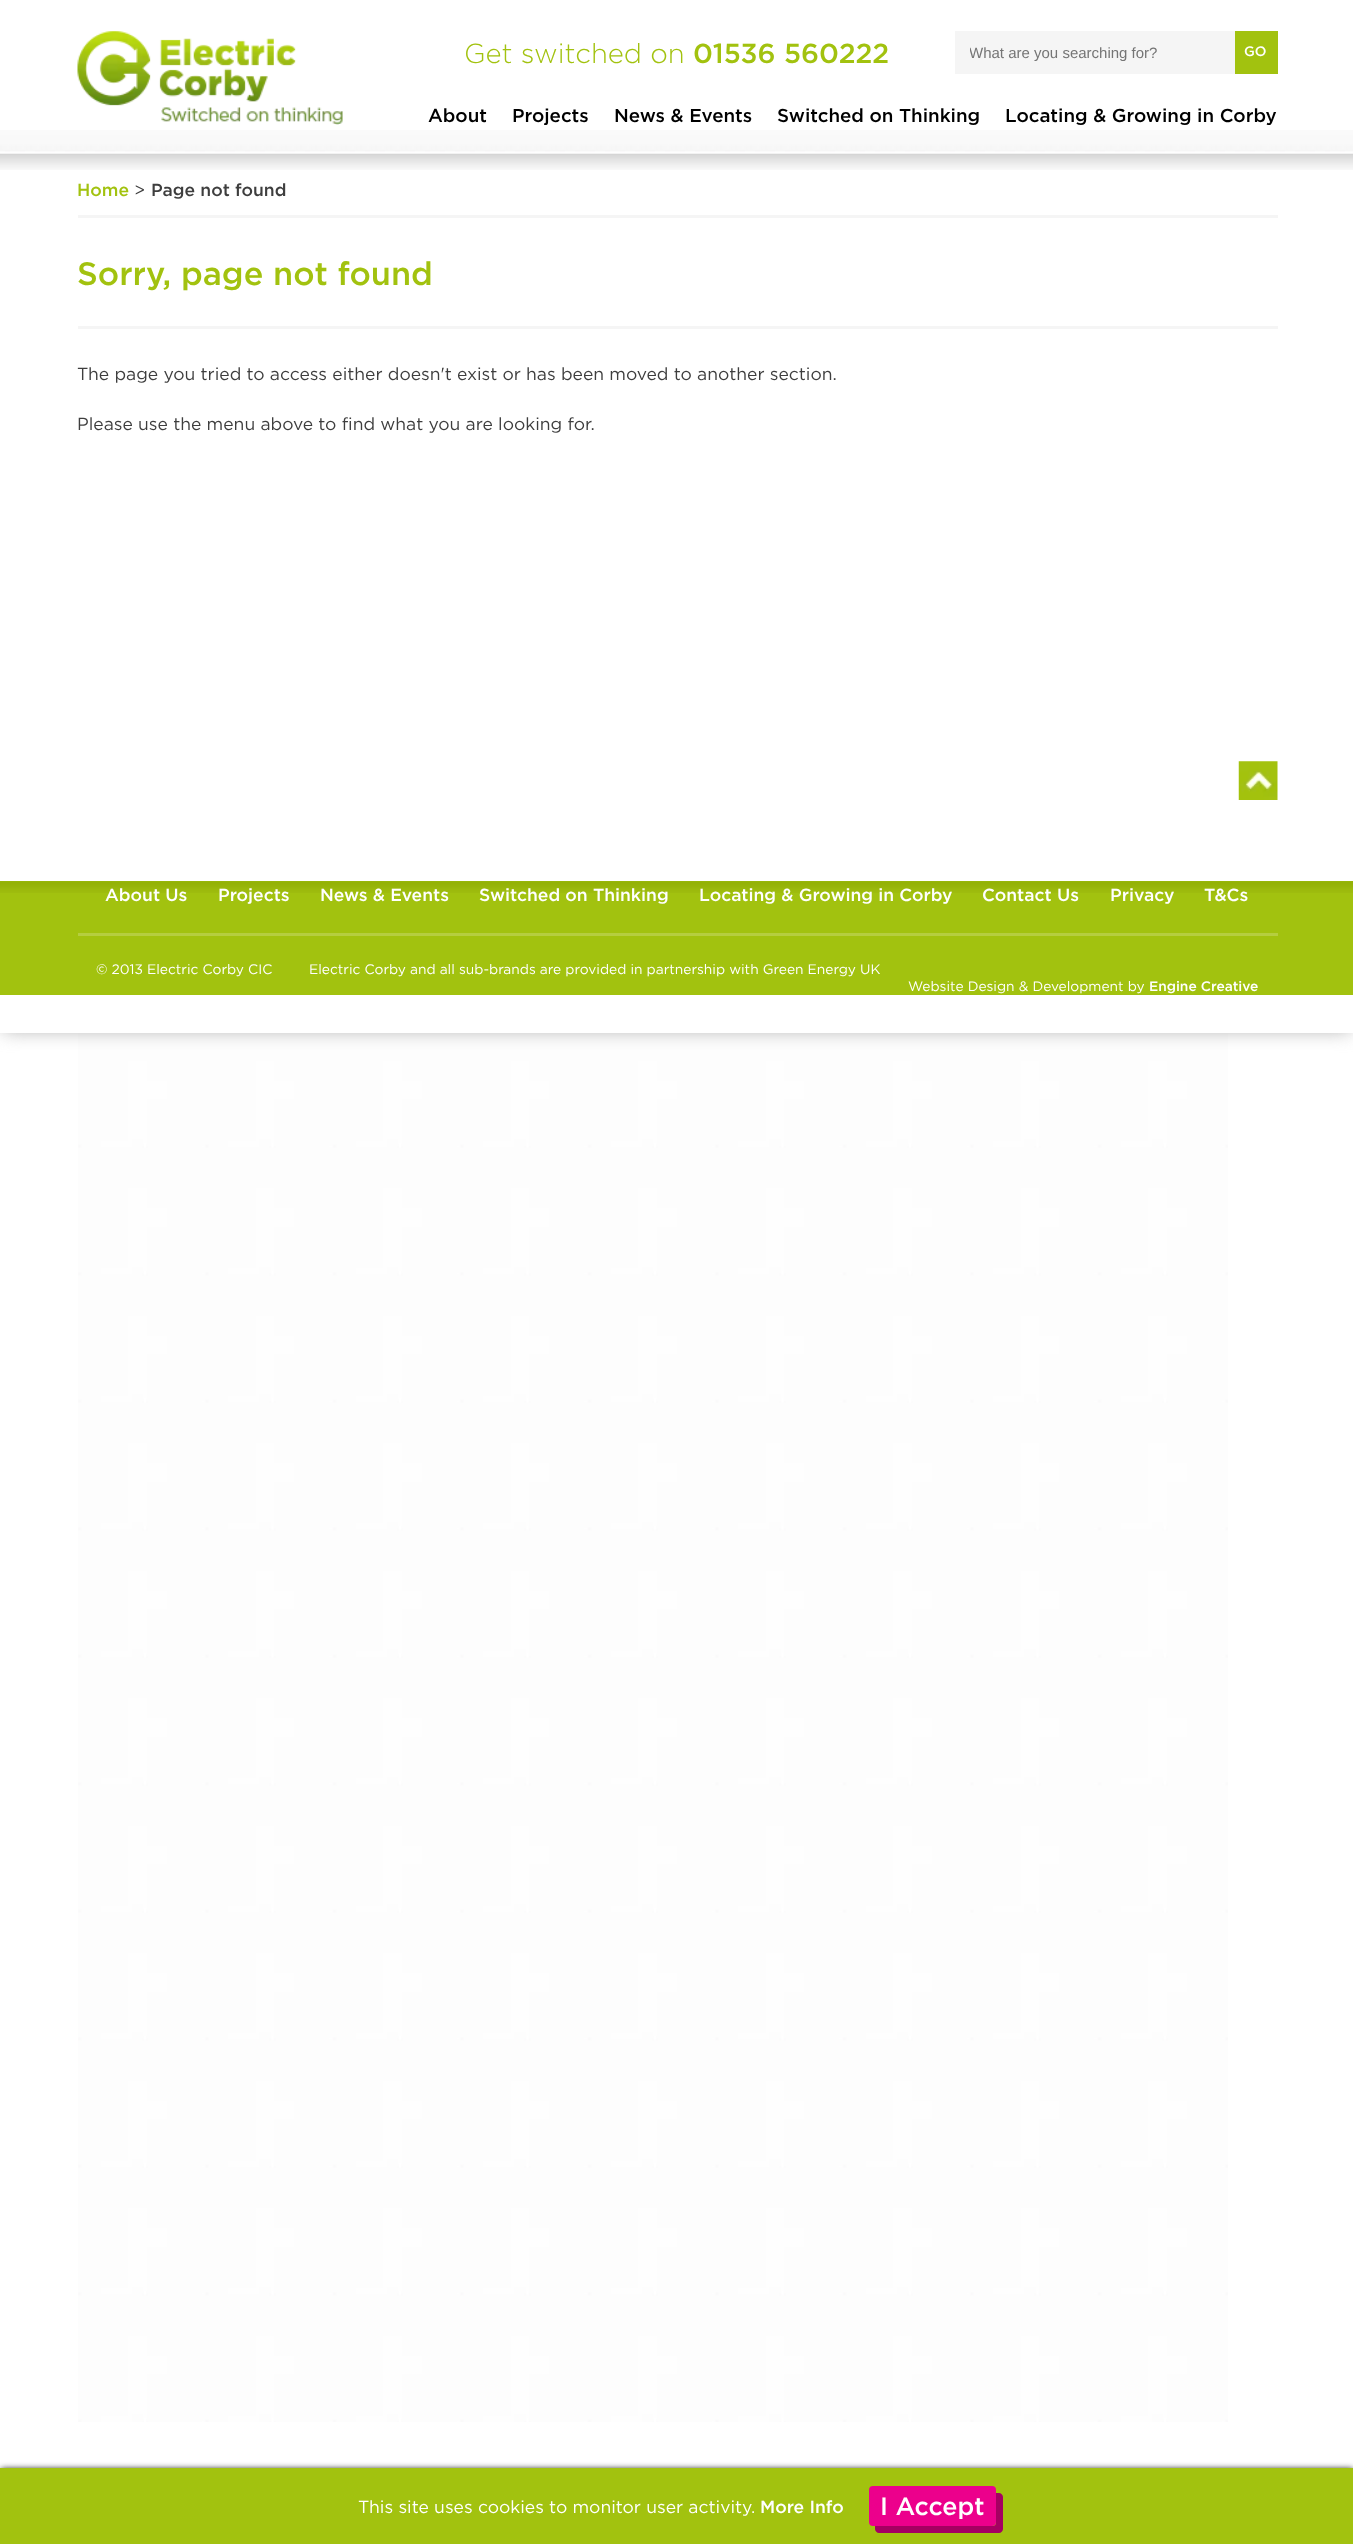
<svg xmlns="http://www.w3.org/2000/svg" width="1353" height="2544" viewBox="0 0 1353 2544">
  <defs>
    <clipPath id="clip1"><path d="M970 44h250v17H970z"/></clipPath>
  </defs>
  <rect width="100%" height="100%" fill="#fff"/>
  <image x="78" y="1033" width="1150" height="1389" href="img/1.png"/>
  <path d="M3 3h1348v1027H3z" fill="#aaa" filter="blur(9.5px)"/>
  <path d="M0 0h1353v1033H0z" fill="#fff"/>
  <image x="0" y="130" width="1353" height="40" href="img/2.png"/>
  <image x="77" y="31" width="266" height="94" href="img/3.png"/>
  <path d="M955 31h280v43H955z" fill="#f5f5f5"/>
  <path d="M1235 31h43v43H1235z" fill="#a2c20f"/>
  <path d="M78 215h1200v3H78z" fill="#f5f5f5"/>
  <path d="M78 326h1200v3H78z" fill="#f5f5f5"/>
  <path d="M0 881h1353v114H0z" fill="#a2c20f"/>
  <image x="0" y="881" width="1353" height="12" href="img/4.png"/>
  <image x="1238" y="761" width="40" height="39" href="img/5.png"/>
  <path d="M78 933h1200v3H78z" fill="#b5ce3f"/>
  <path d="M1 2469h1352v75H1z" fill="#000" filter="blur(3px)"/>
  <path d="M0 2468h1353v76H0z" fill="#a2c20f"/>
  <path d="M875 2526V2529C875 2531 877 2533 879 2533H999C1001 2533 1003 2531 1003 2529V2497C1003 2495 1001 2493 999 2493H996V2522C996 2525 995 2526 992 2526Z" fill="#a50062"/>
  <rect x="869" y="2486" width="127" height="40" rx="4" fill="#ec008c"/>
  <text x="464" y="63" font-family="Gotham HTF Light" font-size="27.5" font-weight="300" fill="#a2c20f">Get switched on</text>
  <text x="693" y="63" font-family="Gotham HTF" font-size="27.5" font-weight="500" fill="#a2c20f">01536 560222</text>
  <g clip-path="url(#clip1)">
    <text x="969" y="58" font-family="Liberation Sans" font-size="15" fill="#757575">What are you searching for?</text>
  </g>
  <text x="1244" y="56" font-family="Gotham HTF" font-size="13.75" font-weight="500" fill="#fff">GO</text>
  <g font-family="Gotham HTF" font-size="18.75" font-weight="500" fill="#000">
    <text x="428" y="122">About</text>
    <text x="512" y="122">Projects</text>
    <text x="614" y="122">News &amp; Events</text>
    <text x="777" y="122">Switched on Thinking</text>
    <text x="1005" y="122">Locating &amp; Growing in Corby</text>
  </g>
  <text x="77" y="196" font-family="Gotham HTF" font-size="17.5" font-weight="500" fill="#a2c20f">Home</text>
  <text x="134" y="196" font-family="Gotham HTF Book" font-size="17.5" fill="#3e3e3e">&gt;</text>
  <text x="151" y="196" font-family="Gotham HTF" font-size="17.5" font-weight="500" fill="#3e3e3e">Page not found</text>
  <text x="77" y="285" font-family="Gotham HTF" font-size="32.5" font-weight="500" fill="#a2c20f">Sorry, page not found</text>
  <g font-family="Gotham HTF Book" font-size="17.5" fill="#3e3e3e">
    <text x="77" y="380">The page you tried to access either doesn't exist or has been moved to another section.</text>
    <text x="77" y="430">Please use the menu above to find what you are looking for.</text>
  </g>
  <g font-family="Gotham HTF" font-size="17.5" font-weight="500" fill="#fff">
    <text x="105" y="901">About Us</text>
    <text x="218" y="901">Projects</text>
    <text x="320" y="901">News &amp; Events</text>
    <text x="479" y="901">Switched on Thinking</text>
    <text x="699" y="901">Locating &amp; Growing in Corby</text>
    <text x="982" y="901">Contact Us</text>
    <text x="1110" y="901">Privacy</text>
    <text x="1204" y="901">T&amp;Cs</text>
  </g>
  <g font-family="Gotham HTF Book" font-size="13.75" fill="#fff">
    <text x="96" y="974">© 2013 Electric Corby CIC</text>
    <text x="309" y="974">Electric Corby and all sub-brands are provided in partnership with Green Energy UK</text>
    <text x="908" y="991">Website Design &amp; Development by</text>
  </g>
  <text x="1149" y="991" font-family="Gotham HTF" font-size="13.75" font-weight="500" fill="#fff">Engine Creative</text>
  <text x="358" y="2513" font-family="Gotham HTF Book" font-size="17.5" fill="#fff">This site uses cookies to monitor user activity.</text>
  <text x="760" y="2513" font-family="Gotham HTF" font-size="17.5" font-weight="500" fill="#fff">More Info</text>
  <text x="880" y="2515" font-family="Gotham HTF" font-size="25" font-weight="500" fill="#fff">I Accept</text>
</svg>
